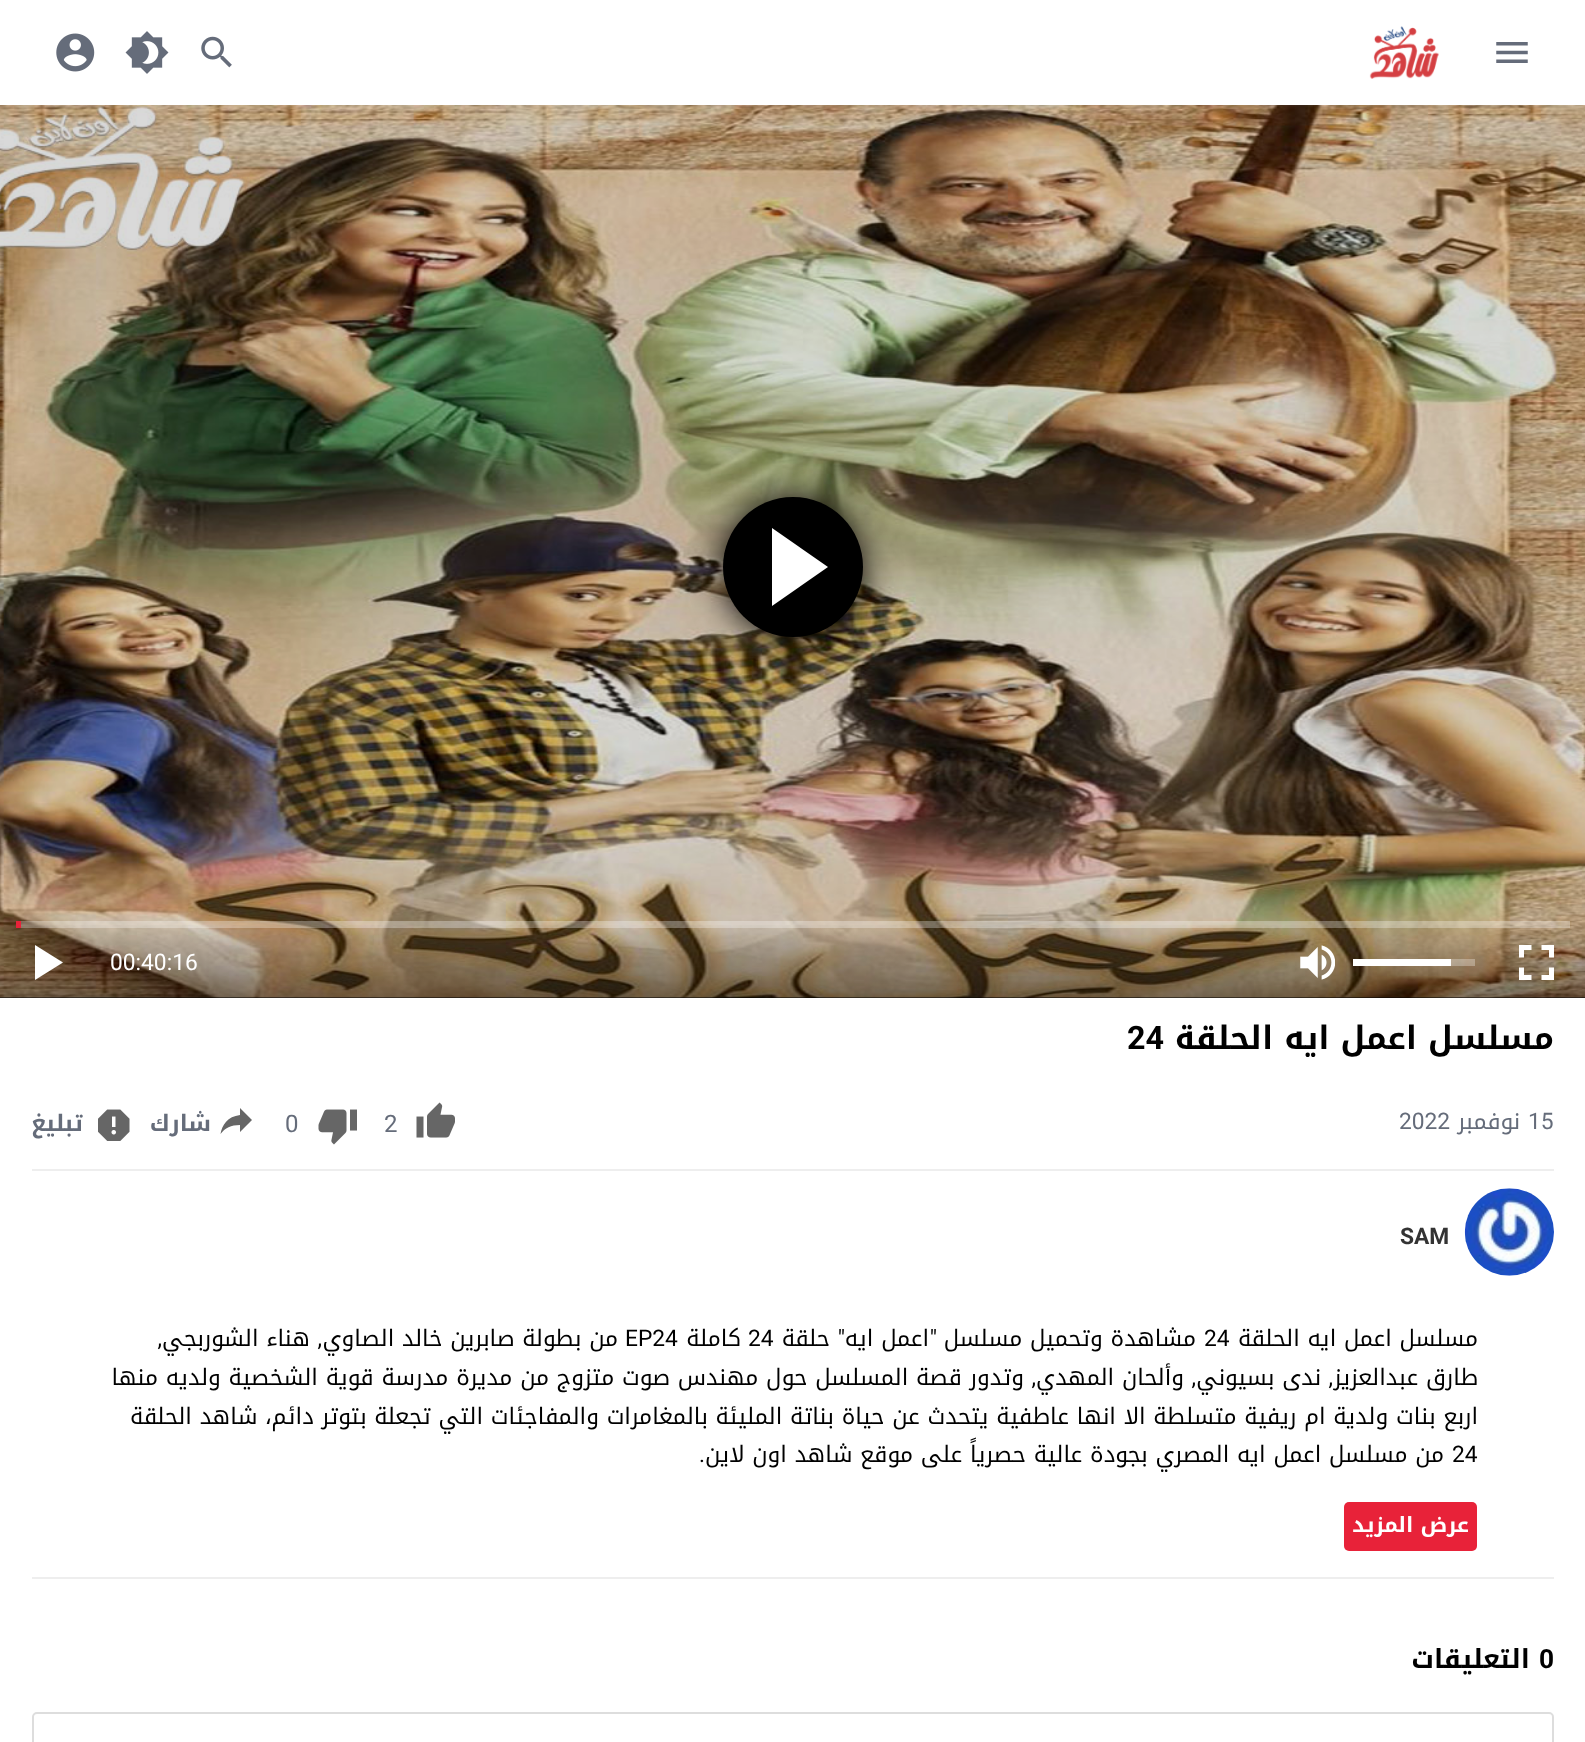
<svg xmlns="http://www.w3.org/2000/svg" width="1585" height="1742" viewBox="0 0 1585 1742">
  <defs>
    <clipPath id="clip1"><path d="M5 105h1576v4H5z"/></clipPath>
    <linearGradient id="g1" gradientUnits="userSpaceOnUse" x1="793" y1="921" x2="793" y2="998"><stop offset="0" stop-color="#000" stop-opacity="0"/><stop offset="1" stop-color="#000" stop-opacity="0.4"/></linearGradient>
  </defs>
  <rect width="100%" height="100%" fill="#fff"/>
  <path d="M0 997h1585v1H0z" fill="#000"/>
  <image x="0" y="105" width="1585" height="893" href="img/6.png"/>
  <g clip-path="url(#clip1)">
    <path d="M9 12h1568v88H9z" fill="#999" filter="blur(4.5px)"/>
  </g>
  <image x="1496" y="42" width="32" height="21" href="img/1.png"/>
  <image x="1369" y="26" width="70" height="53" href="img/2.png"/>
  <image x="201" y="36" width="31" height="32" href="img/3.png"/>
  <image x="125" y="31" width="44" height="43" href="img/4.png"/>
  <image x="56" y="33" width="39" height="39" href="img/5.png"/>
  <rect x="723" y="497" width="140" height="140" rx="70" fill="#000" filter="blur(17.5px)"/>
  <circle cx="793" cy="567" r="70" fill="#000"/>
  <path d="M772 606V528L828 567Z" fill="#fff"/>
  <path d="M0 925h1585v73H0z" fill="url(#g1)"/>
  <path d="M16 921h1554v7H16z" fill="#ffffff4d"/>
  <path d="M16 921h5v7H16z" fill="#e82239"/>
  <image x="1519" y="945" width="35" height="35" href="img/7.png"/>
  <path d="M1451 959h24v7H1451z" fill="#ffffff4d"/>
  <path d="M1353 959h98v7H1353z" fill="#fff"/>
  <image x="1300" y="945" width="35" height="35" href="img/8.png"/>
  <path d="M35 945V980L63 962.5Z" fill="#fff"/>
  <path d="M32 1169h1522v2H32z" fill="#eee"/>
  <image x="416" y="1102" width="39" height="36" href="img/9.png"/>
  <image x="318" y="1109" width="39" height="36" href="img/10.png"/>
  <path d="M252 1120L240 1108V1115C227.5 1116.5 222 1125 220.5 1134C225 1128 231 1125 240 1125V1132Z" fill="#666"/>
  <image x="98" y="1109" width="32" height="32" href="img/11.png"/>
  <image x="1464" y="1188" width="90" height="88" href="img/12.png"/>
  <path d="M32 1577h1522v2H32z" fill="#eee"/>
  <rect x="1344" y="1502" width="133" height="49" rx="5" fill="#e82239"/>
  <rect x="33" y="1713" width="1520" height="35" rx="4" fill="none" stroke="#ddd" stroke-width="2"/>
  <text x="110" y="970" font-family="Roboto" font-size="22.75" fill="#fff">00:40:16</text>
  <text x="1554" y="1049" font-family="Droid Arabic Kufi" font-size="32.25" font-weight="bold" direction="rtl" fill="#000">مسلسل اعمل ايه الحلقة</text>
  <text x="1127" y="1049" font-family="Roboto" font-size="32.25" font-weight="bold" fill="#000">24</text>
  <text x="1528" y="1129" font-family="Roboto" font-size="22.75" fill="#656c7a">15</text>
  <text x="1520" y="1129" font-family="Droid Arabic Kufi" font-size="22.75" direction="rtl" fill="#656c7a">نوفمبر</text>
  <text x="1399" y="1129" font-family="Roboto" font-size="22.75" fill="#656c7a">2022</text>
  <g font-family="Roboto" font-size="24" fill="#656c7a">
    <text x="384" y="1132">2</text>
    <text x="285" y="1132">0</text>
  </g>
  <g font-family="Droid Arabic Kufi" font-size="22.75" font-weight="bold" direction="rtl" fill="#656c7a">
    <text x="211" y="1131">شارك</text>
    <text x="83" y="1131">تبليغ</text>
  </g>
  <text x="1400" y="1244" font-family="Roboto" font-size="22.75" font-weight="bold" fill="#333">SAM</text>
  <text x="1478" y="1346" font-family="Droid Arabic Kufi" font-size="22.75" direction="rtl" fill="#000">مسلسل اعمل ايه الحلقة</text>
  <text x="1204" y="1346" font-family="Roboto" font-size="22.75" fill="#000">24</text>
  <text x="1196" y="1346" font-family="Droid Arabic Kufi" font-size="22.75" direction="rtl" fill="#000">مشاهدة وتحميل مسلسل</text>
  <text x="937" y="1346" font-family="Roboto" font-size="22.75" direction="rtl" fill="#000">"</text>
  <text x="929" y="1346" font-family="Droid Arabic Kufi" font-size="22.75" direction="rtl" fill="#000">اعمل ايه</text>
  <text x="845" y="1346" font-family="Roboto" font-size="22.75" direction="rtl" fill="#000">"</text>
  <text x="830" y="1346" font-family="Droid Arabic Kufi" font-size="22.75" direction="rtl" fill="#000">حلقة</text>
  <text x="748" y="1346" font-family="Roboto" font-size="22.75" fill="#000">24</text>
  <text x="741" y="1346" font-family="Droid Arabic Kufi" font-size="22.75" direction="rtl" fill="#000">كاملة</text>
  <text x="625" y="1346" font-family="Roboto" font-size="22.75" fill="#000">EP24</text>
  <text x="618" y="1346" font-family="Droid Arabic Kufi" font-size="22.75" direction="rtl" fill="#000">من بطولة صابرين خالد الصاوي</text>
  <text x="322" y="1346" font-family="Roboto" font-size="22.75" direction="rtl" fill="#000">,</text>
  <text x="310" y="1346" font-family="Droid Arabic Kufi" font-size="22.75" direction="rtl" fill="#000">هناء الشوربجي</text>
  <g font-family="Roboto" font-size="22.75" direction="rtl" fill="#000">
    <text x="162" y="1346">,</text>
    <text x="1333" y="1385">,</text>
  </g>
  <g font-family="Droid Arabic Kufi" font-size="22.75" direction="rtl" fill="#000">
    <text x="1478" y="1385">طارق عبدالعزيز</text>
    <text x="1321" y="1385">ندى بسيوني</text>
  </g>
  <text x="1196" y="1385" font-family="Roboto" font-size="22.75" direction="rtl" fill="#000">,</text>
  <text x="1184" y="1385" font-family="Droid Arabic Kufi" font-size="22.75" direction="rtl" fill="#000">وألحان المهدي</text>
  <text x="1036" y="1385" font-family="Roboto" font-size="22.75" direction="rtl" fill="#000">,</text>
  <g font-family="Droid Arabic Kufi" font-size="22.75" direction="rtl" fill="#000">
    <text x="1024" y="1385">وتدور قصة المسلسل حول مهندس صوت متزوج من مديرة مدرسة قوية الشخصية ولديه منها</text>
    <text x="1478" y="1424">اربع بنات ولدية ام ريفية متسلطة الا انها عاطفية يتحدث عن حياة بناتة المليئة بالمغامرات والمفاجئات التي تجعلة بتوتر دائم، شاهد الحلقة</text>
  </g>
  <text x="1452" y="1462" font-family="Roboto" font-size="22.75" fill="#000">24</text>
  <text x="1444" y="1462" font-family="Droid Arabic Kufi" font-size="22.75" direction="rtl" fill="#000">من مسلسل اعمل ايه المصري بجودة عالية حصرياً على موقع شاهد اون لاين</text>
  <text x="705" y="1462" font-family="Roboto" font-size="22.75" direction="rtl" fill="#000">.</text>
  <text x="1469" y="1532" font-family="Droid Arabic Kufi" font-size="21" font-weight="bold" direction="rtl" fill="#fff">عرض المزيد</text>
  <text x="1539" y="1668" font-family="Roboto" font-size="26.25" font-weight="bold" fill="#000">0</text>
  <text x="1530" y="1668" font-family="Droid Arabic Kufi" font-size="26.25" font-weight="bold" direction="rtl" fill="#000">التعليقات</text>
</svg>
